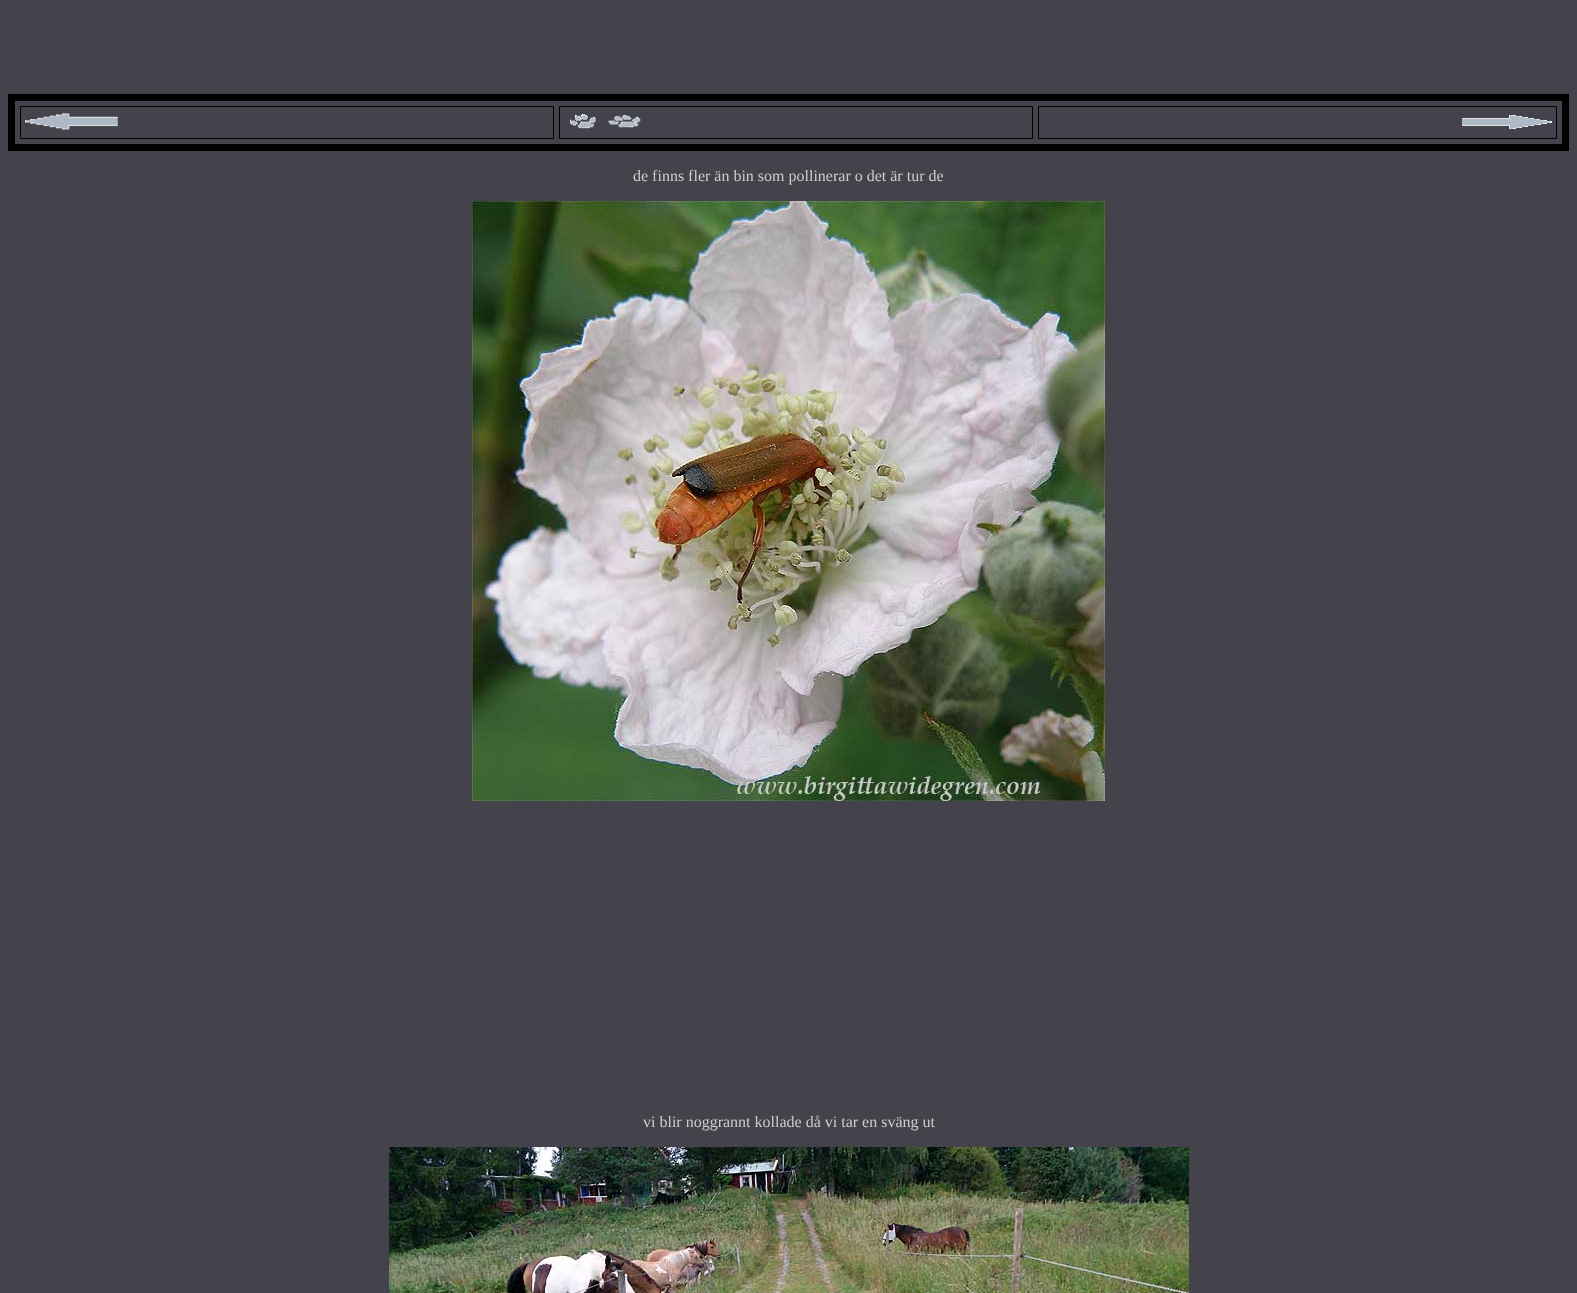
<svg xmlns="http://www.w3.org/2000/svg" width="1577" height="1293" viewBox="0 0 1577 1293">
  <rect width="100%" height="100%" fill="#44434b"/>
  <path d="M11.5 97.5h1554v50H11.5z" fill="none" stroke="#000" stroke-width="7"/>
  <path d="M20.5 106.5h533v32H20.5z" fill="none" stroke="#000"/>
  <image x="25" y="113" width="93" height="17" href="img/1.png"/>
  <path d="M559.5 106.5h473v32H559.5z" fill="none" stroke="#000"/>
  <image x="570" y="114" width="71" height="15" href="img/2.png"/>
  <path d="M1038.5 106.5h518v32H1038.5z" fill="none" stroke="#000"/>
  <image x="1462" y="115" width="90" height="14" href="img/3.png"/>
  <image x="472" y="201" width="633" height="600" href="img/4.png"/>
  <image x="389" y="1147" width="800" height="146" href="img/5.png"/>
  <g font-family="Liberation Serif" font-size="16" fill="#ccc">
    <text x="633" y="181">de finns fler än bin som pollinerar o det är tur de</text>
    <text x="643" y="1127">vi blir noggrannt kollade då vi tar en sväng ut</text>
  </g>
</svg>
